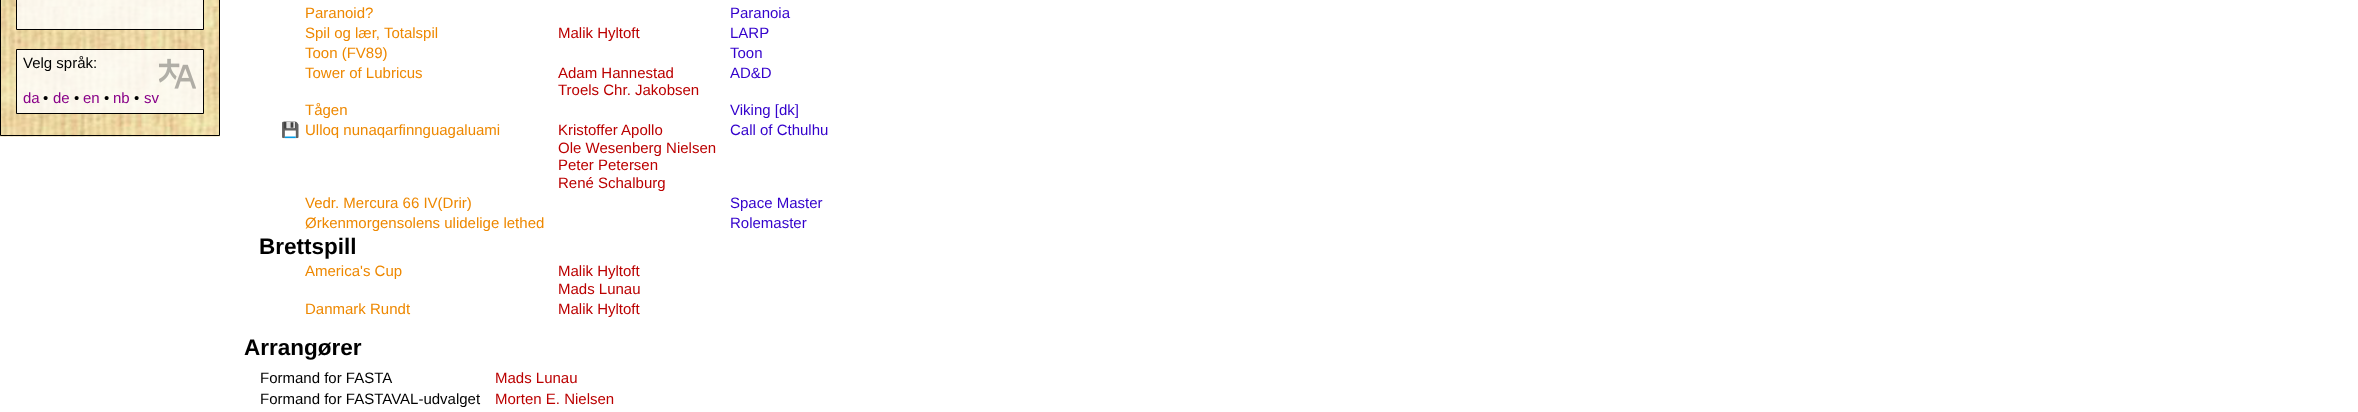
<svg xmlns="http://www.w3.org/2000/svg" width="2358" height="412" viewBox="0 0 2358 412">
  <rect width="100%" height="100%" fill="#fff"/>
  <image x="0" y="0" width="220" height="137" href="img/1.png"/>
  <path d="M0.5 -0.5h219v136H0.5z" fill="none" stroke="#000"/>
  <path d="M16.5 -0.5h187v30H16.5z" fill="#ffffffcc" stroke="#000"/>
  <path d="M16.5 49.5h187v64H16.5z" fill="#ffffffcc" stroke="#000"/>
  <image x="159" y="58" width="37" height="31" href="img/2.png"/>
  <text x="23" y="68" font-family="Liberation Sans" font-size="15" fill="#000">Velg språk:</text>
  <text x="23" y="103" font-family="Liberation Sans" font-size="15" fill="#808">da</text>
  <text x="43" y="103" font-family="Liberation Sans" font-size="15" fill="#000">•</text>
  <text x="53" y="103" font-family="Liberation Sans" font-size="15" fill="#808">de</text>
  <text x="74" y="103" font-family="Liberation Sans" font-size="15" fill="#000">•</text>
  <text x="83" y="103" font-family="Liberation Sans" font-size="15" fill="#808">en</text>
  <text x="104" y="103" font-family="Liberation Sans" font-size="15" fill="#000">•</text>
  <text x="113" y="103" font-family="Liberation Sans" font-size="15" fill="#808">nb</text>
  <text x="134" y="103" font-family="Liberation Sans" font-size="15" fill="#000">•</text>
  <text x="144" y="103" font-family="Liberation Sans" font-size="15" fill="#808">sv</text>
  <text x="305" y="18" font-family="Liberation Sans" font-size="15" fill="#e80">Paranoid?</text>
  <text x="730" y="18" font-family="Liberation Sans" font-size="15" fill="#30c">Paranoia</text>
  <text x="305" y="38" font-family="Liberation Sans" font-size="15" fill="#e80">Spil og lær, Totalspil</text>
  <text x="558" y="38" font-family="Liberation Sans" font-size="15" fill="#b00">Malik Hyltoft</text>
  <text x="730" y="38" font-family="Liberation Sans" font-size="15" fill="#30c">LARP</text>
  <text x="305" y="58" font-family="Liberation Sans" font-size="15" fill="#e80">Toon (FV89)</text>
  <text x="730" y="58" font-family="Liberation Sans" font-size="15" fill="#30c">Toon</text>
  <text x="305" y="78" font-family="Liberation Sans" font-size="15" fill="#e80">Tower of Lubricus</text>
  <g font-family="Liberation Sans" font-size="15" fill="#b00">
    <text x="558" y="78">Adam Hannestad</text>
    <text x="558" y="95">Troels Chr. Jakobsen</text>
  </g>
  <text x="730" y="78" font-family="Liberation Sans" font-size="15" fill="#30c">AD&amp;D</text>
  <text x="305" y="115" font-family="Liberation Sans" font-size="15" fill="#e80">Tågen</text>
  <text x="730" y="115" font-family="Liberation Sans" font-size="15" fill="#30c">Viking [dk]</text>
  <text x="281" y="135" font-family="Noto Color Emoji" font-size="15" fill="#808">💾</text>
  <text x="305" y="135" font-family="Liberation Sans" font-size="15" fill="#e80">Ulloq nunaqarfinnguagaluami</text>
  <g font-family="Liberation Sans" font-size="15" fill="#b00">
    <text x="558" y="135">Kristoffer Apollo</text>
    <text x="558" y="153">Ole Wesenberg Nielsen</text>
    <text x="558" y="170">Peter Petersen</text>
    <text x="558" y="188">René Schalburg</text>
  </g>
  <text x="730" y="135" font-family="Liberation Sans" font-size="15" fill="#30c">Call of Cthulhu</text>
  <text x="305" y="208" font-family="Liberation Sans" font-size="15" fill="#e80">Vedr. Mercura 66 IV(Drir)</text>
  <text x="730" y="208" font-family="Liberation Sans" font-size="15" fill="#30c">Space Master</text>
  <text x="305" y="228" font-family="Liberation Sans" font-size="15" fill="#e80">Ørkenmorgensolens ulidelige lethed</text>
  <text x="730" y="228" font-family="Liberation Sans" font-size="15" fill="#30c">Rolemaster</text>
  <text x="259" y="254" font-family="Liberation Sans" font-size="22.5" font-weight="bold" fill="#000">Brettspill</text>
  <text x="305" y="276" font-family="Liberation Sans" font-size="15" fill="#e80">America's Cup</text>
  <g font-family="Liberation Sans" font-size="15" fill="#b00">
    <text x="558" y="276">Malik Hyltoft</text>
    <text x="558" y="294">Mads Lunau</text>
  </g>
  <text x="305" y="314" font-family="Liberation Sans" font-size="15" fill="#e80">Danmark Rundt</text>
  <text x="558" y="314" font-family="Liberation Sans" font-size="15" fill="#b00">Malik Hyltoft</text>
  <text x="244" y="355" font-family="Liberation Sans" font-size="22.5" font-weight="bold" fill="#000">Arrangører</text>
  <text x="260" y="383" font-family="Liberation Sans" font-size="15" fill="#000">Formand for FASTA</text>
  <text x="495" y="383" font-family="Liberation Sans" font-size="15" fill="#b00">Mads Lunau</text>
  <text x="260" y="404" font-family="Liberation Sans" font-size="15" fill="#000">Formand for FASTAVAL-udvalget</text>
  <text x="495" y="404" font-family="Liberation Sans" font-size="15" fill="#b00">Morten E. Nielsen</text>
</svg>
